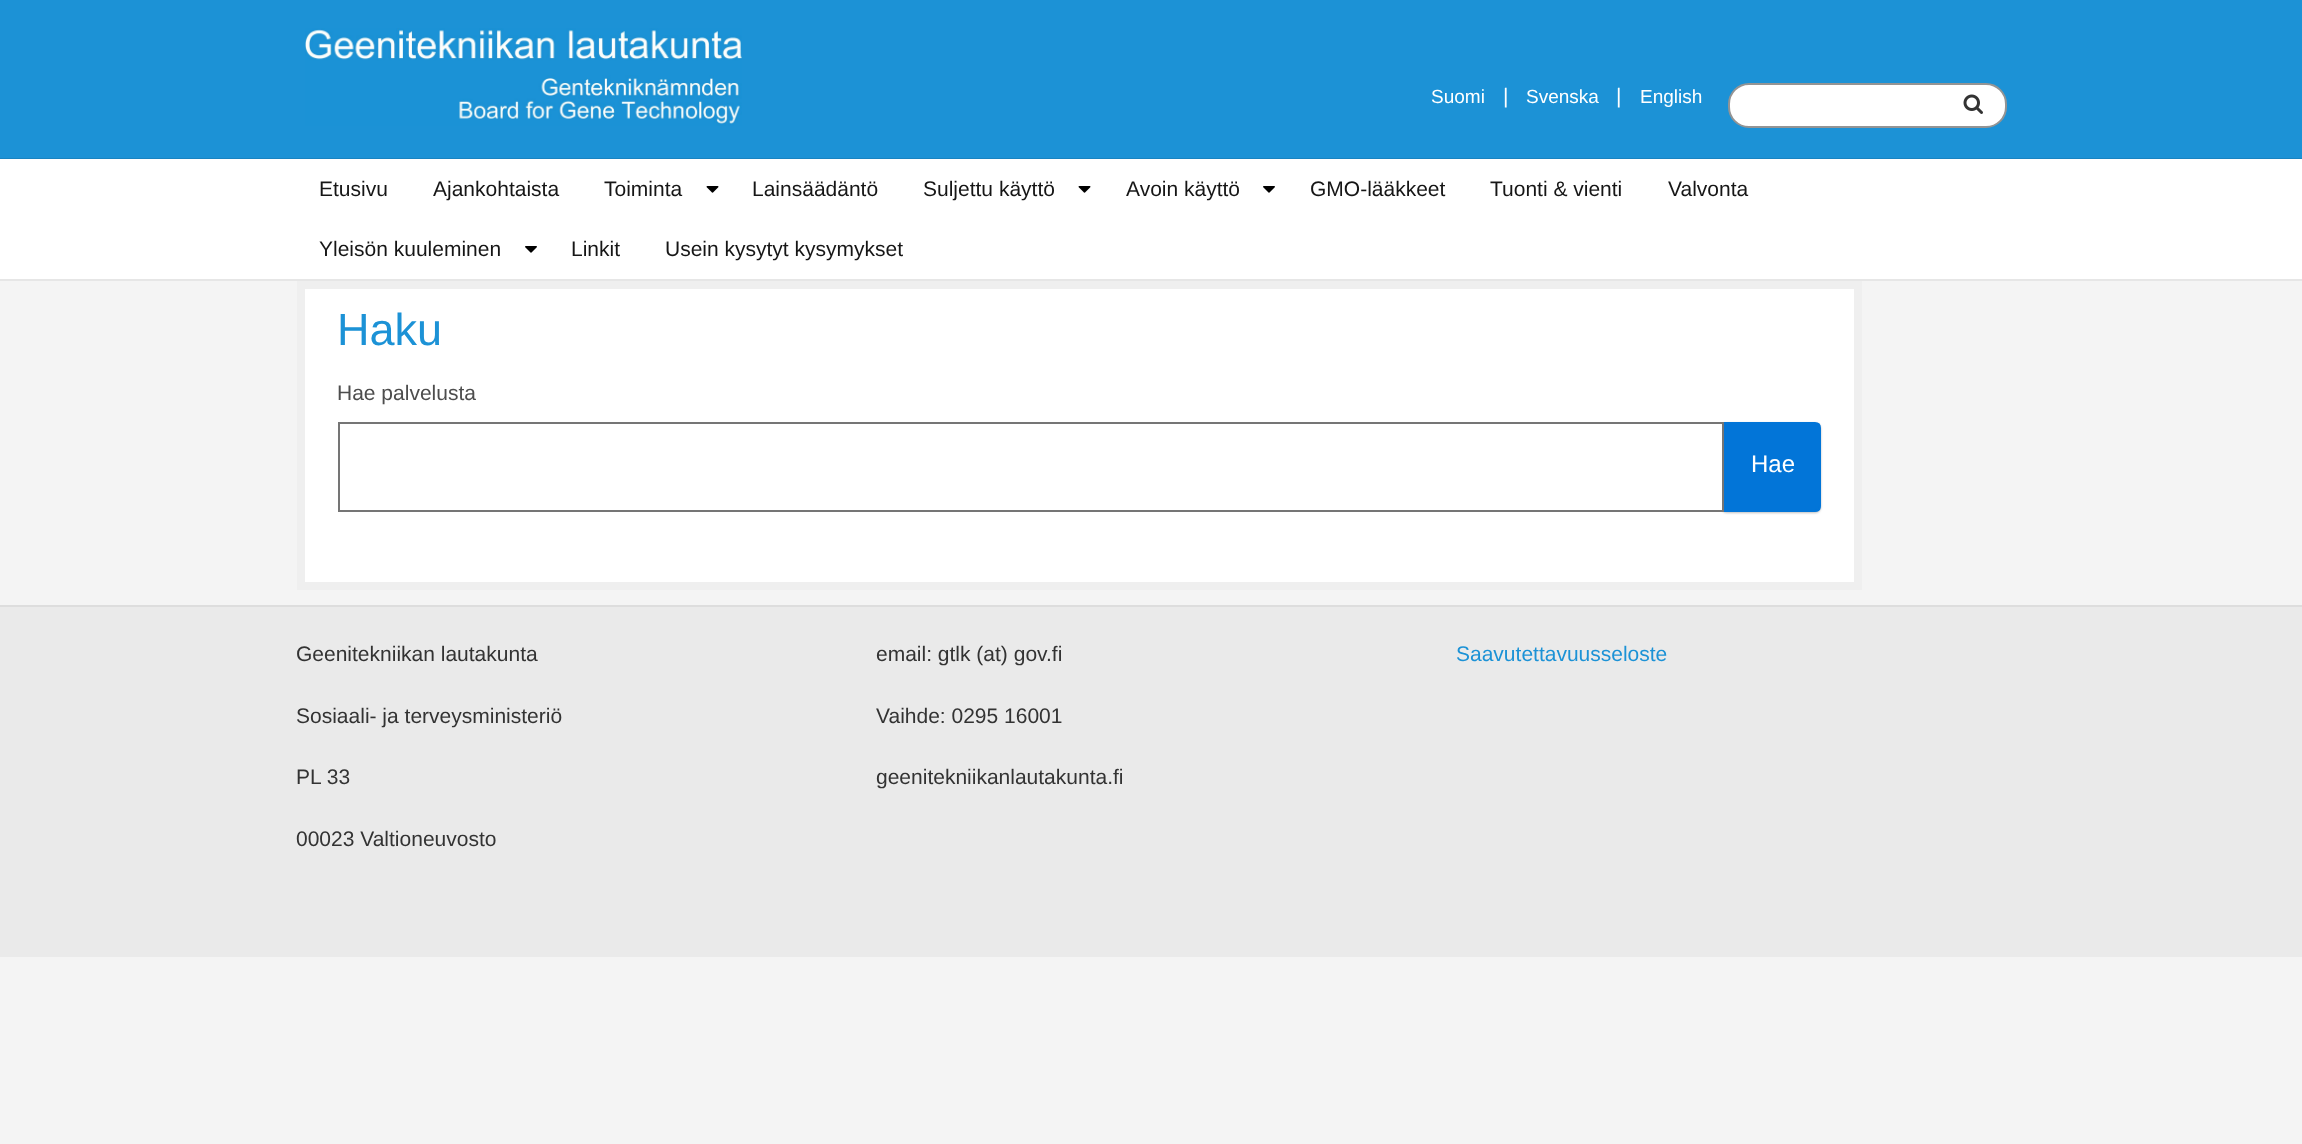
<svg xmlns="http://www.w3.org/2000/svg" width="2302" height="1144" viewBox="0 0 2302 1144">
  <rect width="100%" height="100%" fill="#f4f4f4"/>
  <path d="M0 0h2302v158H0z" fill="#1c92d6"/>
  <path d="M0 158h2302v1H0z" fill="#1983c1"/>
  <image x="305" y="28" width="437" height="98" href="img/1.png"/>
  <rect x="1729" y="84" width="277" height="43" rx="20" fill="#fff" stroke="#949494" stroke-width="2"/>
  <image x="1963" y="94" width="20" height="20" href="img/2.png"/>
  <path d="M0 159h2302v120H0z" fill="#fff"/>
  <path d="M0 279h2302v2H0z" fill="#e6e6e6"/>
  <image x="706" y="186" width="13" height="7" href="img/3.png"/>
  <image x="1078" y="186" width="13" height="7" href="img/3.png"/>
  <image x="1263" y="186" width="12" height="7" href="img/4.png"/>
  <image x="525" y="246" width="12" height="7" href="img/4.png"/>
  <path d="M301 285h1557v301H301z" fill="#fff" stroke="#efefef" stroke-width="8"/>
  <rect x="1721" y="423" width="100" height="90" rx="6" fill="#00000040" filter="blur(1px)"/>
  <path d="M1722 423H1815C1818 423 1820 425 1820 428V506C1820 509 1818 511 1815 511H1722Z" fill="#0275d8" stroke="#0275d8" stroke-width="2"/>
  <path d="M1719 424h3v86H1719z" fill="#fff"/>
  <path d="M339 423h1384v88H339z" fill="none" stroke="#757575" stroke-width="2"/>
  <path d="M0 607h2302v350H0z" fill="#eaeaea"/>
  <path d="M0 605h2302v2H0z" fill="#ddd"/>
  <text x="1431" y="103" font-family="Liberation Sans" font-size="19" fill="#fff">Suomi</text>
  <text x="1503" y="103" font-family="Liberation Sans" font-size="21" fill="#fff">|</text>
  <text x="1526" y="103" font-family="Liberation Sans" font-size="19" fill="#fff">Svenska</text>
  <text x="1616" y="103" font-family="Liberation Sans" font-size="21" fill="#fff">|</text>
  <text x="1640" y="103" font-family="Liberation Sans" font-size="19" fill="#fff">English</text>
  <g font-family="Liberation Sans" font-size="21" fill="#161616">
    <text x="319" y="196">Etusivu</text>
    <text x="433" y="196">Ajankohtaista</text>
    <text x="604" y="196">Toiminta</text>
    <text x="752" y="196">Lainsäädäntö</text>
    <text x="923" y="196">Suljettu käyttö</text>
    <text x="1126" y="196">Avoin käyttö</text>
    <text x="1310" y="196">GMO-lääkkeet</text>
    <text x="1490" y="196">Tuonti &amp; vienti</text>
    <text x="1668" y="196">Valvonta</text>
    <text x="319" y="256">Yleisön kuuleminen</text>
    <text x="571" y="256">Linkit</text>
    <text x="665" y="256">Usein kysytyt kysymykset</text>
  </g>
  <text x="337" y="345" font-family="Liberation Sans" font-size="45" fill="#1c92d6">Haku</text>
  <text x="337" y="400" font-family="Liberation Sans" font-size="21" fill="#4d4d4d">Hae palvelusta</text>
  <text x="1751" y="472" font-family="Liberation Sans" font-size="24" fill="#fff">Hae</text>
  <g font-family="Liberation Sans" font-size="21" fill="#333">
    <text x="296" y="661">Geenitekniikan lautakunta</text>
    <text x="296" y="723">Sosiaali- ja terveysministeriö</text>
    <text x="296" y="784">PL 33</text>
    <text x="296" y="846">00023 Valtioneuvosto</text>
    <text x="876" y="661">email: gtlk (at) gov.fi</text>
    <text x="876" y="723">Vaihde: 0295 16001</text>
    <text x="876" y="784">geenitekniikanlautakunta.fi</text>
  </g>
  <text x="1456" y="661" font-family="Liberation Sans" font-size="21" fill="#1c92d6">Saavutettavuusseloste</text>
</svg>
